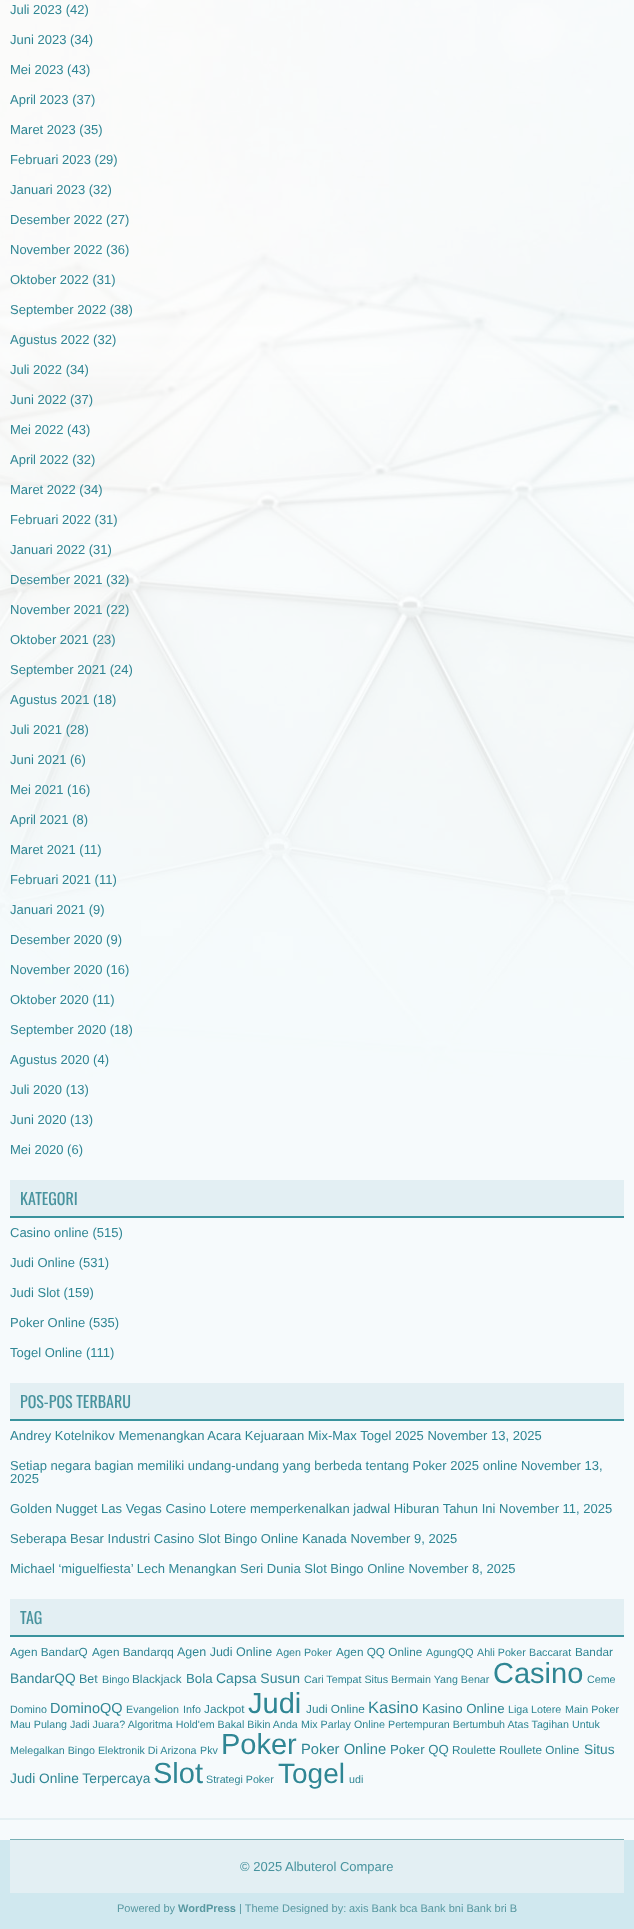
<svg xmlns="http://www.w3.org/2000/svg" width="634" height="1929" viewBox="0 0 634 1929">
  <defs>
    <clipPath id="clip1"><path d="M117 1893h400v21H117z"/></clipPath>
  </defs>
  <rect width="100%" height="100%" fill="#d0e8ef"/>
  <path d="M0 1080h634v738H0z" fill="#f6fafc"/>
  <image x="0" y="0" width="634" height="1080" href="img/1.png"/>
  <path d="M10 1216h614v2H10z" fill="#39939d"/>
  <path d="M10 1180h614v36H10z" fill="#e3eff3"/>
  <path d="M10 1419h614v2H10z" fill="#39939d"/>
  <path d="M10 1383h614v36H10z" fill="#e3eff3"/>
  <path d="M10 1635h614v2H10z" fill="#39939d"/>
  <path d="M10 1599h614v36H10z" fill="#e3eff3"/>
  <path d="M0 1820h634v20H0z" fill="#f6fafc"/>
  <path d="M0 1818h634v2H0z" fill="#e5f0f3"/>
  <path d="M10 1839h614v1H10z" fill="#79afb5"/>
  <path d="M10 1840h614v53H10z" fill="#e3eff3"/>
  <g font-family="Liberation Sans" font-size="13" fill="#2f8694">
    <text x="10" y="14">Juli 2023 (42)</text>
    <text x="10" y="44">Juni 2023 (34)</text>
    <text x="10" y="74">Mei 2023 (43)</text>
    <text x="10" y="104">April 2023 (37)</text>
    <text x="10" y="134">Maret 2023 (35)</text>
    <text x="10" y="164">Februari 2023 (29)</text>
    <text x="10" y="194">Januari 2023 (32)</text>
    <text x="10" y="224">Desember 2022 (27)</text>
    <text x="10" y="254">November 2022 (36)</text>
    <text x="10" y="284">Oktober 2022 (31)</text>
    <text x="10" y="314">September 2022 (38)</text>
    <text x="10" y="344">Agustus 2022 (32)</text>
    <text x="10" y="374">Juli 2022 (34)</text>
    <text x="10" y="404">Juni 2022 (37)</text>
    <text x="10" y="434">Mei 2022 (43)</text>
    <text x="10" y="464">April 2022 (32)</text>
    <text x="10" y="494">Maret 2022 (34)</text>
    <text x="10" y="524">Februari 2022 (31)</text>
    <text x="10" y="554">Januari 2022 (31)</text>
    <text x="10" y="584">Desember 2021 (32)</text>
    <text x="10" y="614">November 2021 (22)</text>
    <text x="10" y="644">Oktober 2021 (23)</text>
    <text x="10" y="674">September 2021 (24)</text>
    <text x="10" y="704">Agustus 2021 (18)</text>
    <text x="10" y="734">Juli 2021 (28)</text>
    <text x="10" y="764">Juni 2021 (6)</text>
    <text x="10" y="794">Mei 2021 (16)</text>
    <text x="10" y="824">April 2021 (8)</text>
    <text x="10" y="854">Maret 2021 (11)</text>
    <text x="10" y="884">Februari 2021 (11)</text>
    <text x="10" y="914">Januari 2021 (9)</text>
    <text x="10" y="944">Desember 2020 (9)</text>
    <text x="10" y="974">November 2020 (16)</text>
    <text x="10" y="1004">Oktober 2020 (11)</text>
    <text x="10" y="1034">September 2020 (18)</text>
    <text x="10" y="1064">Agustus 2020 (4)</text>
    <text x="10" y="1094">Juli 2020 (13)</text>
    <text x="10" y="1124">Juni 2020 (13)</text>
    <text x="10" y="1154">Mei 2020 (6)</text>
  </g>
  <text x="20" y="1205" font-family="Oswald" font-size="16" fill="#48939e">KATEGORI</text>
  <g font-family="Liberation Sans" font-size="13" fill="#2f8694">
    <text x="10" y="1237">Casino online (515)</text>
    <text x="10" y="1267">Judi Online (531)</text>
    <text x="10" y="1297">Judi Slot (159)</text>
    <text x="10" y="1327">Poker Online (535)</text>
    <text x="10" y="1357">Togel Online (111)</text>
  </g>
  <text x="20" y="1408" font-family="Oswald" font-size="16" fill="#48939e">POS-POS TERBARU</text>
  <g font-family="Liberation Sans" font-size="13" fill="#2f8694">
    <text x="10" y="1440">Andrey Kotelnikov Memenangkan Acara Kejuaraan Mix-Max Togel 2025 November 13, 2025</text>
    <text x="10" y="1470">Setiap negara bagian memiliki undang-undang yang berbeda tentang Poker 2025 online November 13,</text>
    <text x="10" y="1483">2025</text>
    <text x="10" y="1513">Golden Nugget Las Vegas Casino Lotere memperkenalkan jadwal Hiburan Tahun Ini November 11, 2025</text>
    <text x="10" y="1543">Seberapa Besar Industri Casino Slot Bingo Online Kanada November 9, 2025</text>
    <text x="10" y="1573">Michael ‘miguelfiesta’ Lech Menangkan Seri Dunia Slot Bingo Online November 8, 2025</text>
  </g>
  <text x="20" y="1624" font-family="Oswald" font-size="16" fill="#48939e">TAG</text>
  <g font-family="Liberation Sans" font-size="11.75" fill="#2f8694">
    <text x="10" y="1656">Agen BandarQ</text>
    <text x="92" y="1656">Agen Bandarqq</text>
  </g>
  <text x="177" y="1656" font-family="Liberation Sans" font-size="12.5" fill="#2f8694">Agen Judi Online</text>
  <text x="276" y="1656" font-family="Liberation Sans" font-size="10.7" fill="#2f8694">Agen Poker</text>
  <text x="336" y="1656" font-family="Liberation Sans" font-size="11.75" fill="#2f8694">Agen QQ Online</text>
  <g font-family="Liberation Sans" font-size="10.7" fill="#2f8694">
    <text x="426" y="1656">AgungQQ</text>
    <text x="477" y="1656">Ahli Poker</text>
    <text x="529" y="1656">Baccarat</text>
  </g>
  <text x="575" y="1656" font-family="Liberation Sans" font-size="11.75" fill="#2f8694">Bandar</text>
  <text x="10" y="1683" font-family="Liberation Sans" font-size="13.75" fill="#2f8694">BandarQQ</text>
  <text x="79" y="1683" font-family="Liberation Sans" font-size="12.5" fill="#2f8694">Bet</text>
  <text x="102" y="1683" font-family="Liberation Sans" font-size="10.7" fill="#2f8694">Bingo</text>
  <text x="132" y="1683" font-family="Liberation Sans" font-size="11.75" fill="#2f8694">Blackjack</text>
  <text x="186" y="1683" font-family="Liberation Sans" font-size="13.25" fill="#2f8694">Bola</text>
  <text x="216" y="1683" font-family="Liberation Sans" font-size="14" fill="#2f8694">Capsa Susun</text>
  <text x="304" y="1683" font-family="Liberation Sans" font-size="10.7" fill="#2f8694">Cari Tempat Situs Bermain Yang Benar</text>
  <text x="493" y="1683" font-family="Liberation Sans" font-size="29" fill="#2f8694">Casino</text>
  <g font-family="Liberation Sans" font-size="10.7" fill="#2f8694">
    <text x="587" y="1683">Ceme</text>
    <text x="10" y="1713">Domino</text>
  </g>
  <text x="50" y="1713" font-family="Liberation Sans" font-size="14.5" fill="#2f8694">DominoQQ</text>
  <g font-family="Liberation Sans" font-size="10.7" fill="#2f8694">
    <text x="126" y="1713">Evangelion</text>
    <text x="183" y="1713">Info</text>
  </g>
  <text x="204" y="1713" font-family="Liberation Sans" font-size="11.75" fill="#2f8694">Jackpot</text>
  <text x="248" y="1713" font-family="Liberation Sans" font-size="29" fill="#2f8694">Judi</text>
  <text x="306" y="1713" font-family="Liberation Sans" font-size="11.75" fill="#2f8694">Judi Online</text>
  <text x="368" y="1713" font-family="Liberation Sans" font-size="16.5" fill="#2f8694">Kasino</text>
  <text x="422" y="1713" font-family="Liberation Sans" font-size="13.25" fill="#2f8694">Kasino Online</text>
  <g font-family="Liberation Sans" font-size="10.7" fill="#2f8694">
    <text x="508" y="1713">Liga</text>
    <text x="531" y="1713">Lotere</text>
    <text x="565" y="1713">Main Poker</text>
    <text x="10" y="1728">Mau Pulang Jadi Juara? Algoritma Hold'em Bakal Bikin Anda</text>
    <text x="301" y="1728">Mix Parlay</text>
    <text x="354" y="1728">Online</text>
    <text x="388" y="1728">Pertempuran Bertumbuh Atas Tagihan Untuk</text>
    <text x="10" y="1754">Melegalkan Bingo Elektronik Di Arizona</text>
    <text x="200" y="1754">Pkv</text>
  </g>
  <text x="221" y="1754" font-family="Liberation Sans" font-size="29" fill="#2f8694">Poker</text>
  <text x="301" y="1754" font-family="Liberation Sans" font-size="14.75" fill="#2f8694">Poker Online</text>
  <text x="390" y="1754" font-family="Liberation Sans" font-size="13.25" fill="#2f8694">Poker QQ</text>
  <g font-family="Liberation Sans" font-size="11.75" fill="#2f8694">
    <text x="452" y="1754">Roulette</text>
    <text x="499" y="1754">Roullete Online</text>
  </g>
  <g font-family="Liberation Sans" font-size="13.75" fill="#2f8694">
    <text x="584" y="1754">Situs</text>
    <text x="10" y="1783">Judi Online Terpercaya</text>
  </g>
  <text x="153" y="1783" font-family="Liberation Sans" font-size="29" fill="#2f8694">Slot</text>
  <text x="206" y="1783" font-family="Liberation Sans" font-size="10.7" fill="#2f8694">Strategi Poker</text>
  <text x="278" y="1783" font-family="Liberation Sans" font-size="28" fill="#2f8694">Togel</text>
  <text x="349" y="1783" font-family="Liberation Sans" font-size="10.7" fill="#2f8694">udi</text>
  <g font-family="Liberation Sans" font-size="13" fill="#48939e">
    <text x="240" y="1871">© 2025</text>
    <text x="285" y="1871">Albuterol Compare</text>
  </g>
  <text x="117" y="1912" font-family="Liberation Sans" font-size="11" fill="#5898a1">Powered by</text>
  <text x="178" y="1912" font-family="Liberation Sans" font-size="11" font-weight="bold" fill="#5898a1">WordPress</text>
  <g clip-path="url(#clip1)">
    <text x="239" y="1912" font-family="Liberation Sans" font-size="11" fill="#5898a1">| Theme Designed by:</text>
  </g>
  <text x="349" y="1912" font-family="Liberation Sans" font-size="11" fill="#5898a1">axis Bank bca Bank bni Bank bri B</text>
</svg>
